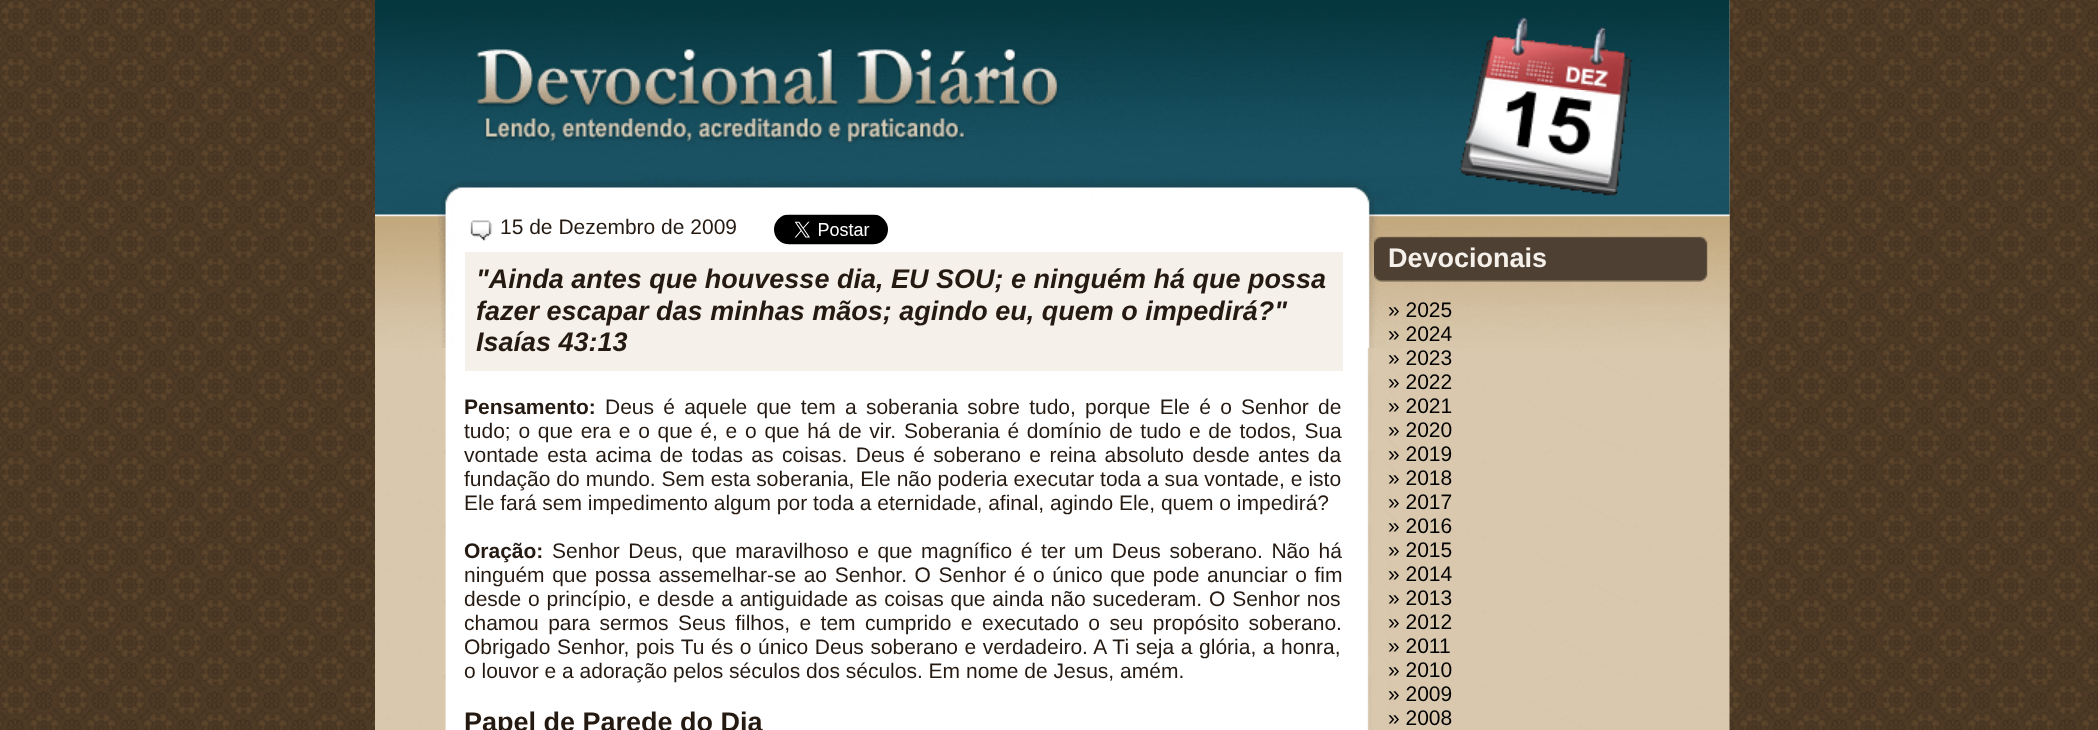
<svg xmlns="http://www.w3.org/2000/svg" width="2098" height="730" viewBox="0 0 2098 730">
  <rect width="100%" height="100%" fill="#fff"/>
  <image x="0" y="0" width="2098" height="730" href="img/1.png"/>
  <image x="375" y="0" width="1355" height="730" href="img/2.png"/>
  <image x="375" y="0" width="1355" height="348" href="img/3.png"/>
  <image x="470" y="220" width="23" height="21" href="img/4.png"/>
  <image x="774" y="214" width="114" height="31" href="img/5.png"/>
  <path d="M465 252h878v119H465z" fill="#f5f1ea"/>
  <image x="1477" y="17" width="68" height="73" href="img/6.png"/>
  <image x="1545" y="26" width="88" height="64" href="img/7.png"/>
  <image x="1459" y="90" width="86" height="97" href="img/8.png"/>
  <image x="1545" y="90" width="85" height="106" href="img/9.png"/>
  <image x="1374" y="236" width="334" height="46" href="img/10.png"/>
  <text x="500" y="234" font-family="Liberation Sans" font-size="21" fill="#251a12">15 de Dezembro de 2009</text>
  <g font-family="Liberation Sans" font-size="27" font-weight="bold" font-style="italic" fill="#251a12">
    <text x="476" y="288">"Ainda antes que houvesse dia, EU SOU; e ninguém há que possa</text>
    <text x="476" y="320">fazer escapar das minhas mãos; agindo eu, quem o impedirá?"</text>
    <text x="476" y="351">Isaías 43:13</text>
  </g>
  <text x="464" y="414" font-family="Liberation Sans" font-size="21" font-weight="bold" fill="#251a12">Pensamento:</text>
  <g font-family="Liberation Sans" font-size="21" fill="#251a12">
    <text x="605" y="414" word-spacing="3.4">Deus é aquele que tem a soberania sobre tudo, porque Ele é o Senhor de</text>
    <text x="464" y="438" word-spacing="1.9">tudo; o que era e o que é, e o que há de vir. Soberania é domínio de tudo e de todos, Sua</text>
    <text x="464" y="462" word-spacing="2.6">vontade esta acima de todas as coisas. Deus é soberano e reina absoluto desde antes da</text>
    <text x="464" y="486" word-spacing="0.1">fundação do mundo. Sem esta soberania, Ele não poderia executar toda a sua vontade, e isto</text>
    <text x="464" y="510">Ele fará sem impedimento algum por toda a eternidade, afinal, agindo Ele, quem o impedirá?</text>
  </g>
  <text x="464" y="558" font-family="Liberation Sans" font-size="21" font-weight="bold" fill="#251a12">Oração:</text>
  <g font-family="Liberation Sans" font-size="21" fill="#251a12">
    <text x="552" y="558" word-spacing="2.75">Senhor Deus, que maravilhoso e que magnífico é ter um Deus soberano. Não há</text>
    <text x="464" y="582" word-spacing="1.75">ninguém que possa assemelhar-se ao Senhor. O Senhor é o único que pode anunciar o fim</text>
    <text x="464" y="606" word-spacing="1">desde o princípio, e desde a antiguidade as coisas que ainda não sucederam. O Senhor nos</text>
    <text x="464" y="630" word-spacing="3.6">chamou para sermos Seus filhos, e tem cumprido e executado o seu propósito soberano.</text>
    <text x="464" y="654" word-spacing="0.75">Obrigado Senhor, pois Tu és o único Deus soberano e verdadeiro. A Ti seja a glória, a honra,</text>
    <text x="464" y="678">o louvor e a adoração pelos séculos dos séculos. Em nome de Jesus, amém.</text>
  </g>
  <text x="464" y="731" font-family="Liberation Sans" font-size="27" font-weight="bold" fill="#251a12">Papel de Parede do Dia</text>
  <text x="1388" y="267" font-family="Liberation Sans" font-size="27" font-weight="bold" fill="#f5f1ea">Devocionais</text>
  <g font-family="Liberation Sans" font-size="21" fill="#000">
    <text x="1388" y="317">» 2025</text>
    <text x="1388" y="341">» 2024</text>
    <text x="1388" y="365">» 2023</text>
    <text x="1388" y="389">» 2022</text>
    <text x="1388" y="413">» 2021</text>
    <text x="1388" y="437">» 2020</text>
    <text x="1388" y="461">» 2019</text>
    <text x="1388" y="485">» 2018</text>
    <text x="1388" y="509">» 2017</text>
    <text x="1388" y="533">» 2016</text>
    <text x="1388" y="557">» 2015</text>
    <text x="1388" y="581">» 2014</text>
    <text x="1388" y="605">» 2013</text>
    <text x="1388" y="629">» 2012</text>
    <text x="1388" y="653">» 2011</text>
    <text x="1388" y="677">» 2010</text>
    <text x="1388" y="701">» 2009</text>
    <text x="1388" y="725">» 2008</text>
  </g>
</svg>
